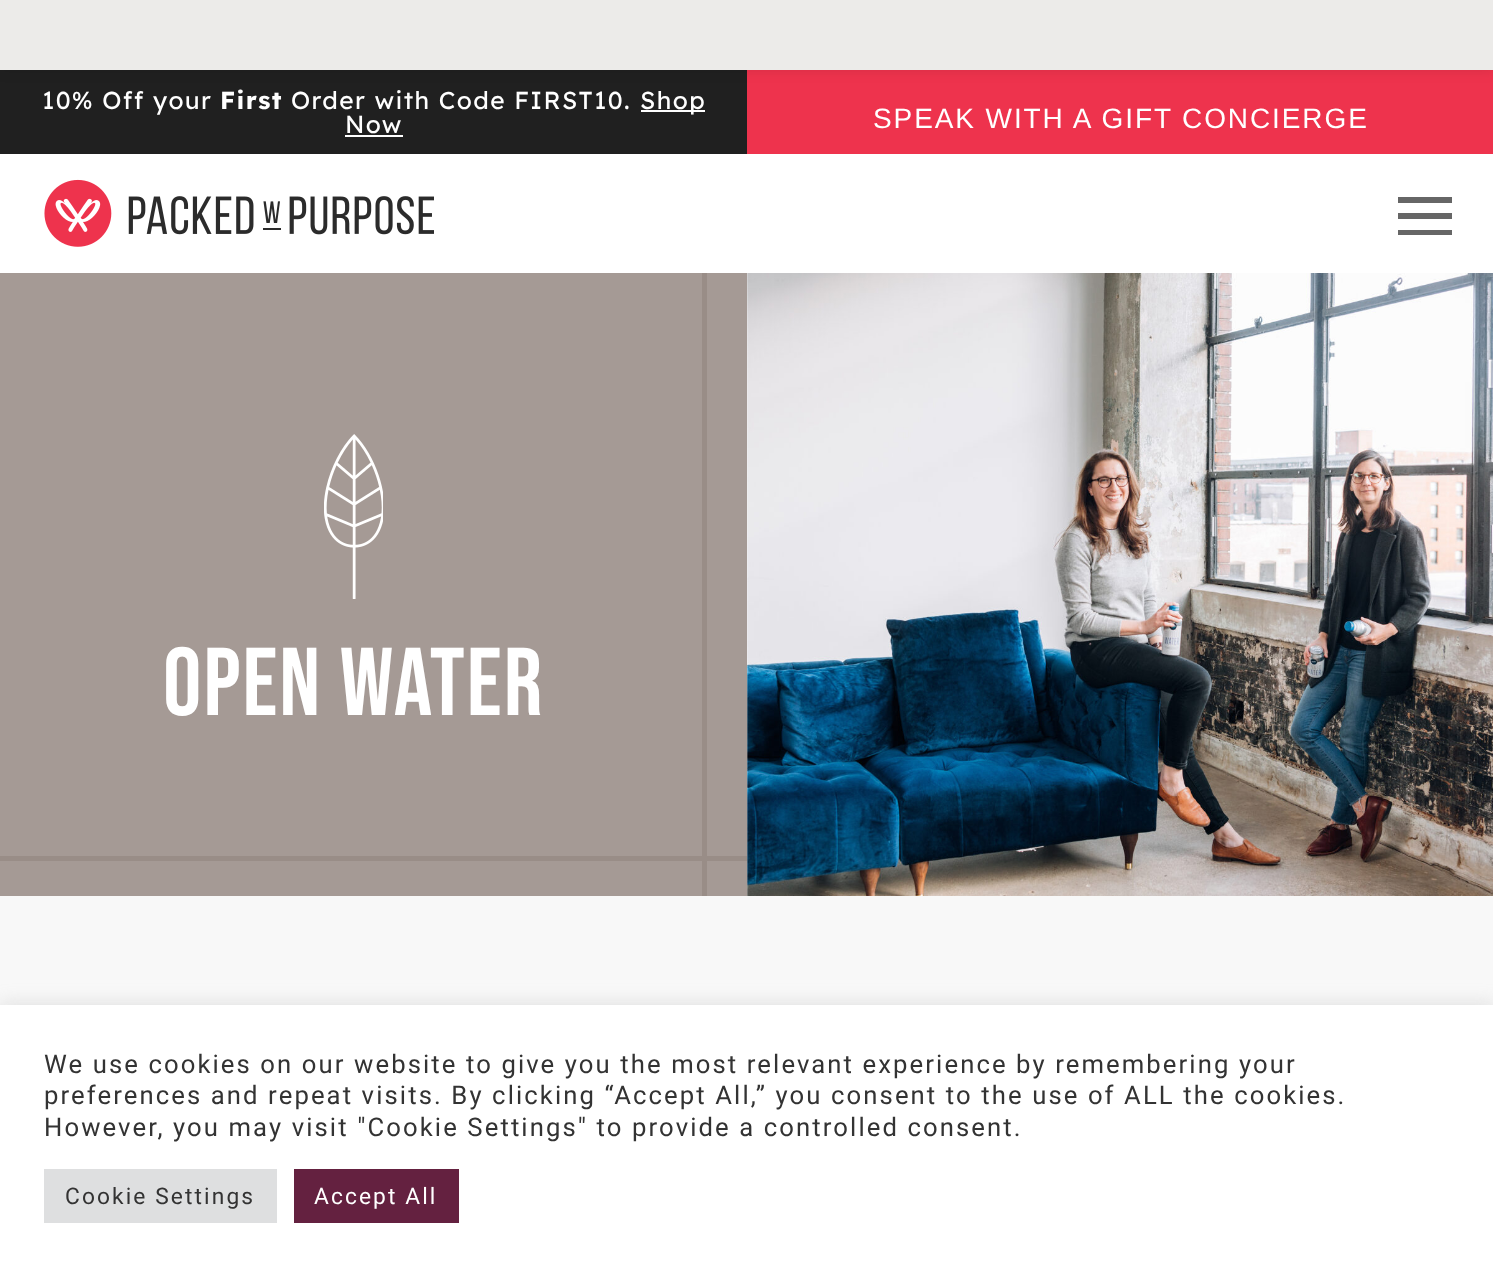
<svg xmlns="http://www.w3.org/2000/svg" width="1493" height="1275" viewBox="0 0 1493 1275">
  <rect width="100%" height="100%" fill="#f8f8f8"/>
  <path d="M0 70h747v84H0z" fill="#202020"/>
  <path d="M747 70h746v84H747z" fill="#ee334d"/>
  <path d="M0 0h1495v70H0z" fill="#0000001a" filter="blur(7px)"/>
  <path d="M0 0h1493v70H0z" fill="#ecebe9"/>
  <path d="M641 110h64v2H641z" fill="#fff"/>
  <path d="M345 135h58v2H345z" fill="#fff"/>
  <path d="M0 154h1493v119H0z" fill="#fff"/>
  <image x="44" y="179" width="390" height="68" href="img/1.png"/>
  <path d="M1398 197V203H1452V197ZM1398 213V219H1452V213ZM1398 230V235H1452V230Z" fill="#666"/>
  <path d="M0 273h747v623H0z" fill="#a59a95"/>
  <image x="324" y="434" width="59" height="165" href="img/2.png"/>
  <path d="M702 273h5v623H702z" fill="#998d87"/>
  <path d="M0 856h747v5H0z" fill="#998d87"/>
  <image x="747" y="273" width="746" height="623" href="img/3.png"/>
  <path d="M0 1003h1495v271H0z" fill="#acabab4d" filter="blur(9px)"/>
  <path d="M0 1005h1493v270H0z" fill="#fff"/>
  <path d="M44 1169h233v54H44z" fill="#dedfe0"/>
  <path d="M294 1169h165v54H294z" fill="#642140"/>
  <text x="42" y="109" font-family="Lexend" font-size="24.5" letter-spacing="1.4" fill="#fff">10% Off your</text>
  <text x="220" y="109" font-family="Lexend" font-size="24.5" font-weight="bold" letter-spacing="1.4" fill="#fff">First</text>
  <g font-family="Lexend" font-size="24.5" letter-spacing="1.4" fill="#fff">
    <text x="291" y="109">Order with Code FIRST10.</text>
    <text x="640" y="109">Shop</text>
    <text x="345" y="133">Now</text>
  </g>
  <text x="873" y="128" font-family="Liberation Sans" font-size="28" letter-spacing="1.9" fill="#fff">SPEAK WITH A GIFT CONCIERGE</text>
  <text x="163" y="715" font-family="Bebas Neue" font-size="96" letter-spacing="2" fill="#fff">OPEN WATER</text>
  <g font-family="Roboto" font-size="25.67" letter-spacing="2.1" fill="#333">
    <text x="44" y="1073">We use cookies on our website to give you the most relevant experience by remembering your</text>
    <text x="44" y="1104">preferences and repeat visits. By clicking “Accept All,” you consent to the use of ALL the cookies.</text>
    <text x="44" y="1136">However, you may visit "Cookie Settings" to provide a controlled consent.</text>
  </g>
  <text x="65" y="1204" font-family="Roboto" font-size="22.75" letter-spacing="2.1" fill="#333">Cookie Settings</text>
  <text x="314" y="1204" font-family="Roboto" font-size="22.75" letter-spacing="2.1" fill="#fff">Accept All</text>
</svg>
